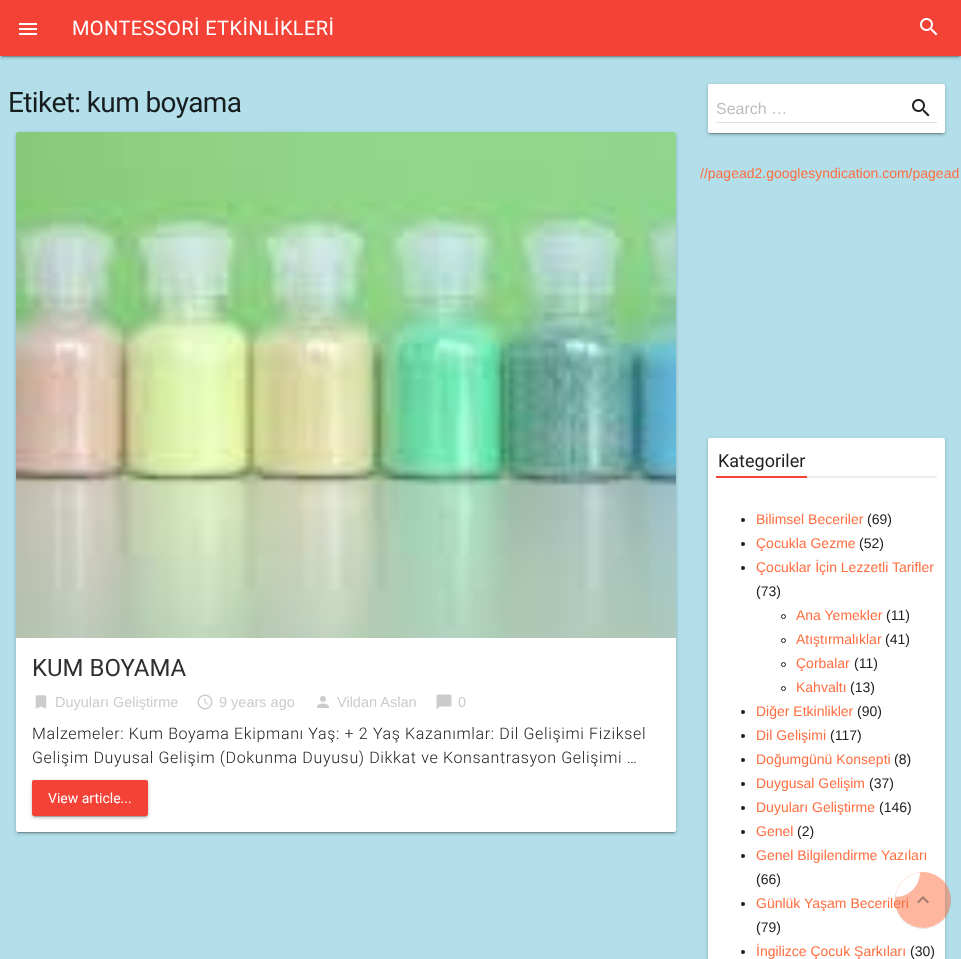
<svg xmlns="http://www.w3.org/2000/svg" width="961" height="959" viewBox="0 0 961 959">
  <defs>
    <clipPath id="clip1"><path d="M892 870H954V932H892ZM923 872C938.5 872 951 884.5 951 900C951 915.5 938.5 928 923 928C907.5 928 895 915.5 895 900C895 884.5 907.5 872 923 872Z" clip-rule="evenodd"/></clipPath>
    <clipPath id="clip2"><rect x="895" y="872" width="56" height="56" rx="28"/></clipPath>
  </defs>
  <rect width="100%" height="100%" fill="#b2dfea"/>
  <path d="M0 1h961v56H0z" fill="#0000001f" filter="blur(2.5px)"/>
  <path d="M2 5h957v52H2z" fill="#00000033" filter="blur(0.5px)"/>
  <path d="M0 2h961v56H0z" fill="#00000024" filter="blur(1px)"/>
  <path d="M0 0h961v56H0z" fill="#f44336"/>
  <image x="19" y="23" width="18" height="12" href="img/1.png"/>
  <image x="920" y="18" width="18" height="18" href="img/2.png"/>
  <rect x="16" y="133" width="660" height="700" rx="2" fill="#0000001f" filter="blur(2.5px)"/>
  <path d="M18 137h656v696H18z" fill="#00000033" filter="blur(0.5px)"/>
  <rect x="16" y="134" width="660" height="700" rx="2" fill="#00000024" filter="blur(1px)"/>
  <rect x="16" y="132" width="660" height="700" rx="2" fill="#fff"/>
  <image x="16" y="132" width="660" height="506" href="img/3.png"/>
  <image x="35" y="695" width="12" height="14" href="img/4.png"/>
  <image x="197" y="694" width="16" height="16" href="img/5.png"/>
  <image x="317" y="696" width="12" height="12" href="img/6.png"/>
  <image x="436" y="694" width="16" height="16" href="img/7.png"/>
  <rect x="32" y="781" width="116" height="36" rx="2" fill="#0000001f" filter="blur(2.5px)"/>
  <path d="M34 785h112v32H34z" fill="#00000033" filter="blur(0.5px)"/>
  <rect x="32" y="782" width="116" height="36" rx="2" fill="#00000024" filter="blur(1px)"/>
  <rect x="32" y="780" width="116" height="36" rx="2" fill="#f44336"/>
  <rect x="708" y="85" width="237" height="49" rx="2" fill="#0000001f" filter="blur(2.5px)"/>
  <path d="M710 89h233v45H710z" fill="#00000033" filter="blur(0.5px)"/>
  <rect x="708" y="86" width="237" height="49" rx="2" fill="#00000024" filter="blur(1px)"/>
  <rect x="708" y="84" width="237" height="49" rx="2" fill="#fff"/>
  <image x="912" y="99" width="18" height="18" href="img/8.png"/>
  <path d="M716 122h221v1H716z" fill="#e0e0e0"/>
  <rect x="708" y="439" width="237" height="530" rx="2" fill="#0000001f" filter="blur(2.5px)"/>
  <rect x="708" y="440" width="237" height="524" rx="2" fill="#00000024" filter="blur(1px)"/>
  <rect x="708" y="438" width="237" height="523" rx="2" fill="#fff"/>
  <path d="M807 476h130v2H807z" fill="#eee"/>
  <path d="M716 476h91v2H716z" fill="#f44336"/>
  <circle cx="743" cy="520" r="2" fill="#212121"/>
  <circle cx="743" cy="544" r="2" fill="#212121"/>
  <circle cx="743" cy="568" r="2" fill="#212121"/>
  <circle cx="783.5" cy="616.5" r="2" fill="none" stroke="#212121"/>
  <circle cx="783.5" cy="640.5" r="2" fill="none" stroke="#212121"/>
  <circle cx="783.5" cy="664.5" r="2" fill="none" stroke="#212121"/>
  <circle cx="783.5" cy="688.5" r="2" fill="none" stroke="#212121"/>
  <circle cx="743" cy="712" r="2" fill="#212121"/>
  <circle cx="743" cy="736" r="2" fill="#212121"/>
  <circle cx="743" cy="760" r="2" fill="#212121"/>
  <circle cx="743" cy="784" r="2" fill="#212121"/>
  <circle cx="743" cy="808" r="2" fill="#212121"/>
  <circle cx="743" cy="832" r="2" fill="#212121"/>
  <circle cx="743" cy="856" r="2" fill="#212121"/>
  <circle cx="743" cy="904" r="2" fill="#212121"/>
  <circle cx="743" cy="952" r="2" fill="#212121"/>
  <g clip-path="url(#clip1)">
    <rect x="895" y="873" width="56" height="56" rx="28" fill="#0000001f" filter="blur(0.5px)"/>
  </g>
  <text x="72" y="35" font-family="Roboto" font-size="20" letter-spacing="0.4" fill="#fff">MONTESSORİ ETKİNLİKLERİ</text>
  <text x="8" y="112" font-family="Roboto" font-size="28" letter-spacing="-0.6" fill="#171d1e">Etiket: kum boyama</text>
  <text x="32" y="676" font-family="Roboto" font-size="24" fill="#303030">KUM BOYAMA</text>
  <g font-family="Liberation Sans" font-size="14.5" fill="#ccc">
    <text x="55" y="707">Duyuları Geliştirme</text>
    <text x="219" y="707">9 years ago</text>
    <text x="337" y="707">Vildan Aslan</text>
    <text x="458" y="707">0</text>
  </g>
  <g font-family="Roboto" font-size="16" font-weight="300" letter-spacing="0.65" fill="#212121">
    <text x="32" y="739">Malzemeler: Kum Boyama Ekipmanı Yaş: + 2 Yaş Kazanımlar: Dil Gelişimi Fiziksel</text>
    <text x="32" y="763">Gelişim Duyusal Gelişim (Dokunma Duyusu) Dikkat ve Konsantrasyon Gelişimi …</text>
  </g>
  <text x="48" y="803" font-family="Roboto" font-size="14" fill="#fff">View article...</text>
  <text x="716" y="114" font-family="Liberation Sans" font-size="16" fill="#bdbdbd">Search …</text>
  <text x="700" y="178" font-family="Liberation Sans" font-size="14" fill="#ff6e40">//pagead2.googlesyndication.com/pagead</text>
  <text x="718" y="467" font-family="Roboto" font-size="18" fill="#212121">Kategoriler</text>
  <text x="756" y="524" font-family="Liberation Sans" font-size="14" fill="#ff6e40">Bilimsel Beceriler</text>
  <text x="867" y="524" font-family="Liberation Sans" font-size="14" fill="#212121">(69)</text>
  <text x="756" y="548" font-family="Liberation Sans" font-size="14" fill="#ff6e40">Çocukla Gezme</text>
  <text x="859" y="548" font-family="Liberation Sans" font-size="14" fill="#212121">(52)</text>
  <text x="756" y="572" font-family="Liberation Sans" font-size="14" fill="#ff6e40">Çocuklar İçin Lezzetli Tarifler</text>
  <text x="756" y="596" font-family="Liberation Sans" font-size="14" fill="#212121">(73)</text>
  <text x="796" y="620" font-family="Liberation Sans" font-size="14" fill="#ff6e40">Ana Yemekler</text>
  <text x="886" y="620" font-family="Liberation Sans" font-size="14" fill="#212121">(11)</text>
  <text x="796" y="644" font-family="Liberation Sans" font-size="14" fill="#ff6e40">Atıştırmalıklar</text>
  <text x="885" y="644" font-family="Liberation Sans" font-size="14" fill="#212121">(41)</text>
  <text x="796" y="668" font-family="Liberation Sans" font-size="14" fill="#ff6e40">Çorbalar</text>
  <text x="854" y="668" font-family="Liberation Sans" font-size="14" fill="#212121">(11)</text>
  <text x="796" y="692" font-family="Liberation Sans" font-size="14" fill="#ff6e40">Kahvaltı</text>
  <text x="850" y="692" font-family="Liberation Sans" font-size="14" fill="#212121">(13)</text>
  <text x="756" y="716" font-family="Liberation Sans" font-size="14" fill="#ff6e40">Diğer Etkinlikler</text>
  <text x="857" y="716" font-family="Liberation Sans" font-size="14" fill="#212121">(90)</text>
  <text x="756" y="740" font-family="Liberation Sans" font-size="14" fill="#ff6e40">Dil Gelişimi</text>
  <text x="830" y="740" font-family="Liberation Sans" font-size="14" fill="#212121">(117)</text>
  <text x="756" y="764" font-family="Liberation Sans" font-size="14" fill="#ff6e40">Doğumgünü Konsepti</text>
  <text x="894" y="764" font-family="Liberation Sans" font-size="14" fill="#212121">(8)</text>
  <text x="756" y="788" font-family="Liberation Sans" font-size="14" fill="#ff6e40">Duygusal Gelişim</text>
  <text x="869" y="788" font-family="Liberation Sans" font-size="14" fill="#212121">(37)</text>
  <text x="756" y="812" font-family="Liberation Sans" font-size="14" fill="#ff6e40">Duyuları Geliştirme</text>
  <text x="879" y="812" font-family="Liberation Sans" font-size="14" fill="#212121">(146)</text>
  <text x="756" y="836" font-family="Liberation Sans" font-size="14" fill="#ff6e40">Genel</text>
  <text x="797" y="836" font-family="Liberation Sans" font-size="14" fill="#212121">(2)</text>
  <text x="756" y="860" font-family="Liberation Sans" font-size="14" fill="#ff6e40">Genel Bilgilendirme Yazıları</text>
  <text x="756" y="884" font-family="Liberation Sans" font-size="14" fill="#212121">(66)</text>
  <text x="756" y="908" font-family="Liberation Sans" font-size="14" fill="#ff6e40">Günlük Yaşam Becerileri</text>
  <text x="756" y="932" font-family="Liberation Sans" font-size="14" fill="#212121">(79)</text>
  <text x="756" y="956" font-family="Liberation Sans" font-size="14" fill="#ff6e40">İngilizce Çocuk Şarkıları</text>
  <text x="910" y="956" font-family="Liberation Sans" font-size="14" fill="#212121">(30)</text>
  <circle cx="923" cy="900" r="28" fill="#ff6e4080"/>
  <image x="917" y="896" width="12" height="8" href="img/9.png"/>
  <g clip-path="url(#clip2)">
    <g clip-path="url(#clip2)">
      <path d="M895 872H920C920 886 909 897 895 897Z" fill="#fff"/>
    </g>
  </g>
</svg>
